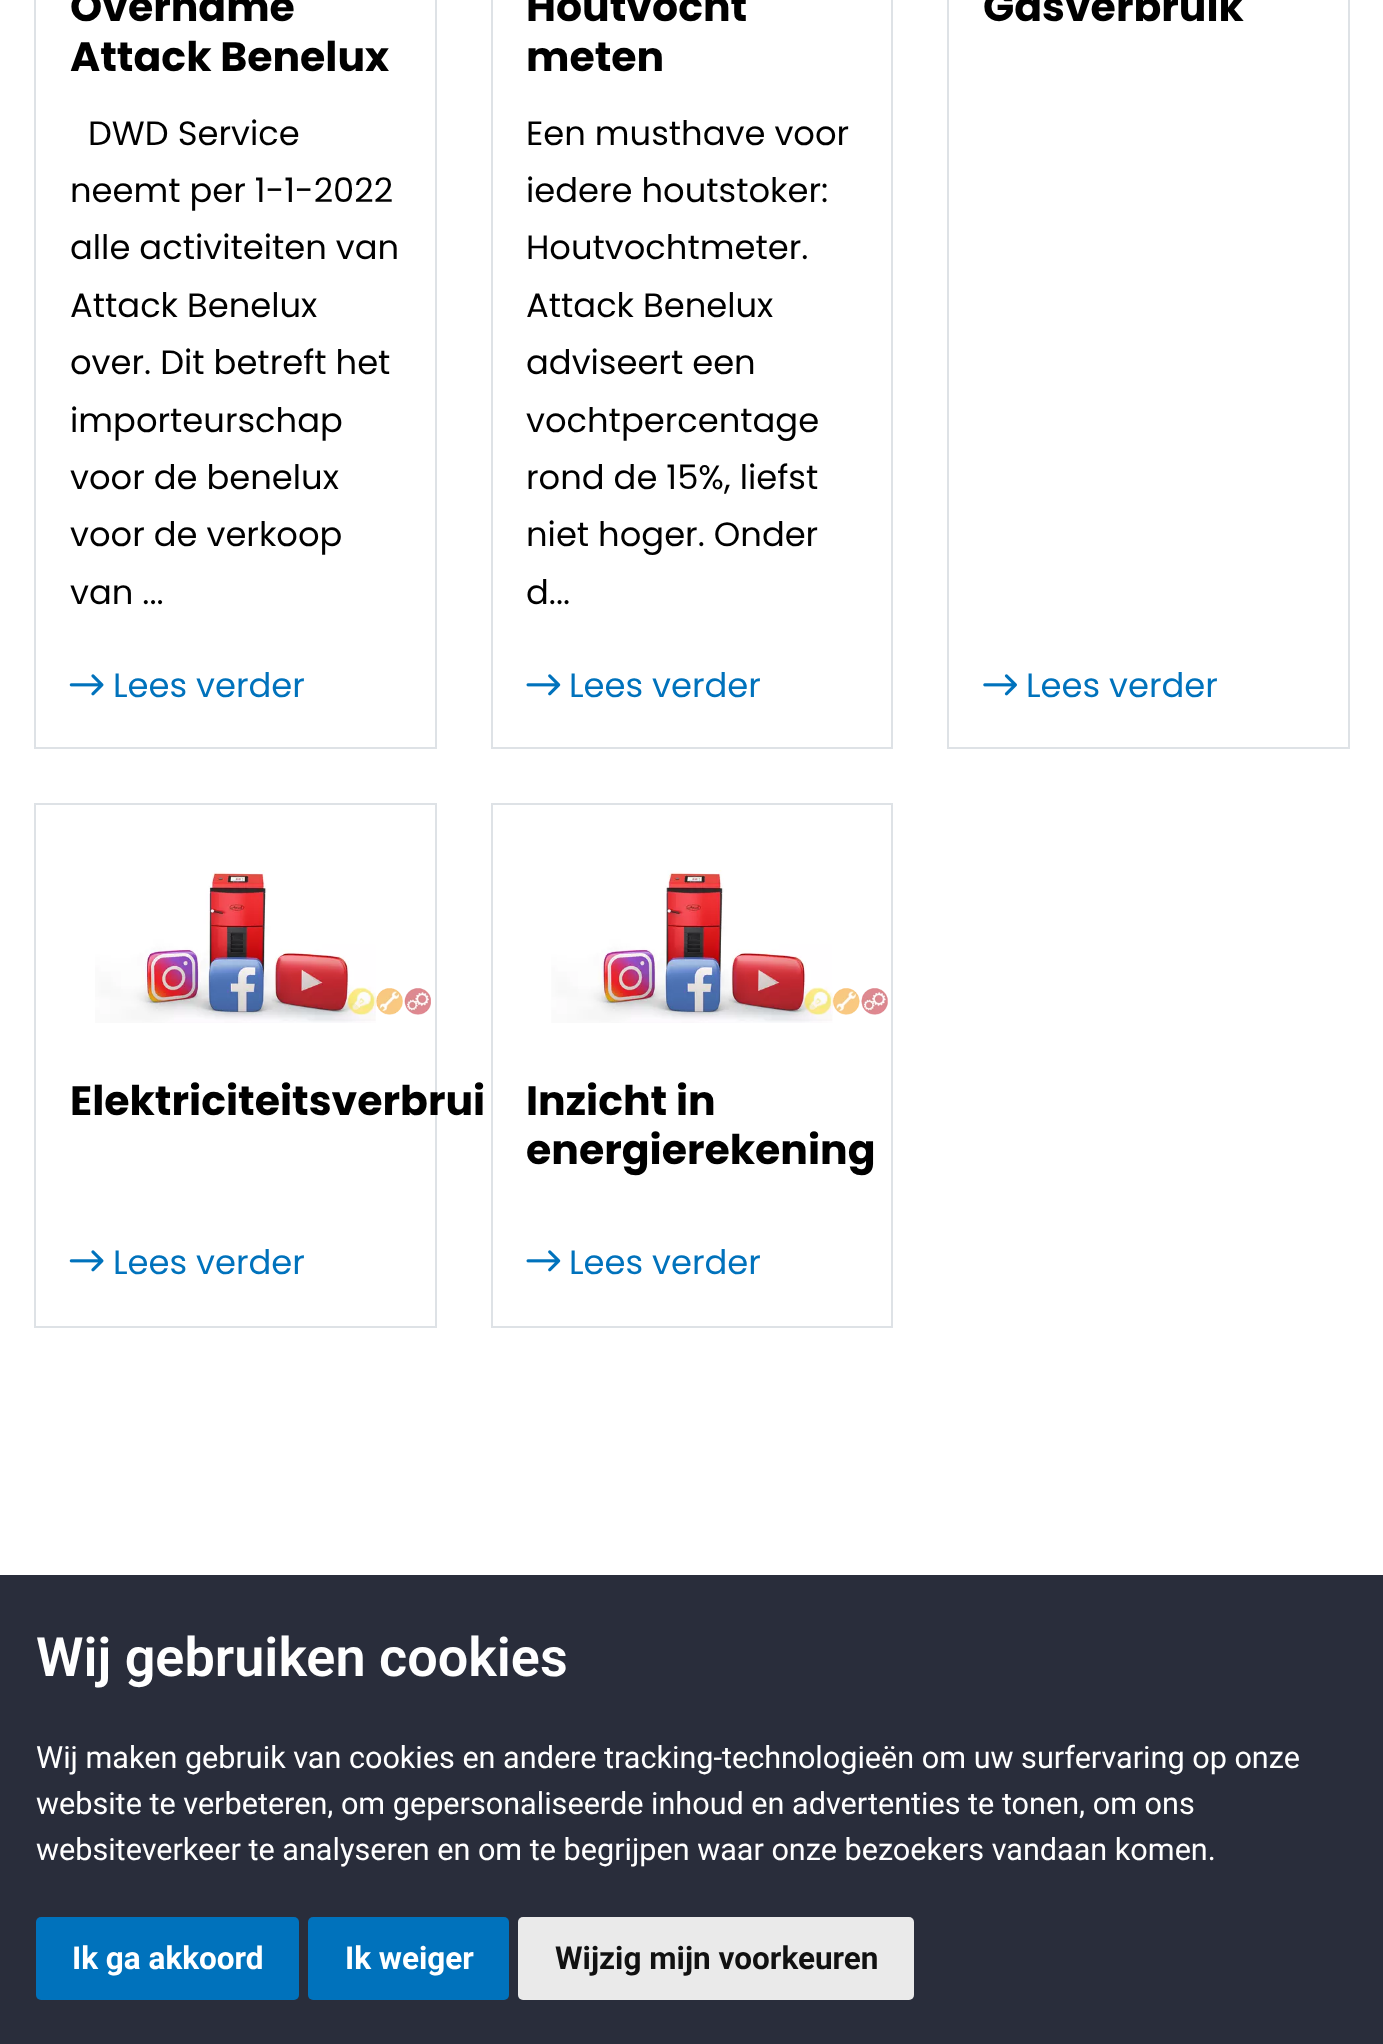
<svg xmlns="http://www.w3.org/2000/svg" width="1383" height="2044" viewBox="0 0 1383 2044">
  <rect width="100%" height="100%" fill="#fff"/>
  <path d="M35 -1h401v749H35z" fill="none" stroke="#dee2e6" stroke-width="2"/>
  <image x="69" y="674" width="35" height="22" href="img/1.png"/>
  <path d="M492 -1h400v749H492z" fill="none" stroke="#dee2e6" stroke-width="2"/>
  <image x="526" y="674" width="35" height="22" href="img/2.png"/>
  <path d="M948 -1h401v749H948z" fill="none" stroke="#dee2e6" stroke-width="2"/>
  <image x="983" y="674" width="34" height="22" href="img/3.png"/>
  <path d="M35 804h401v523H35z" fill="none" stroke="#dee2e6" stroke-width="2"/>
  <image x="95" y="870" width="336" height="153" href="img/4.png"/>
  <image x="69" y="1250" width="35" height="22" href="img/1.png"/>
  <path d="M492 804h400v523H492z" fill="none" stroke="#dee2e6" stroke-width="2"/>
  <image x="551" y="870" width="337" height="153" href="img/5.png"/>
  <image x="526" y="1250" width="35" height="22" href="img/2.png"/>
  <path d="M0 1575h1383v469H0z" fill="#292d3b"/>
  <rect x="36" y="1917" width="263" height="83" rx="5" fill="#0072bc"/>
  <rect x="308" y="1917" width="201" height="83" rx="5" fill="#0072bc"/>
  <rect x="518" y="1917" width="396" height="83" rx="5" fill="#eaeaea"/>
  <g font-family="Poppins" font-size="41" font-weight="bold" fill="#000">
    <text x="70" y="21">Overname</text>
    <text x="70" y="71">Attack Benelux</text>
  </g>
  <g font-family="Poppins" font-size="33.75" fill="#000">
    <text x="88" y="145">DWD Service</text>
    <text x="70" y="202">neemt per 1-1-2022</text>
    <text x="70" y="259">alle activiteiten van</text>
    <text x="70" y="317">Attack Benelux</text>
    <text x="70" y="374">over. Dit betreft het</text>
    <text x="70" y="432">importeurschap</text>
    <text x="70" y="489">voor de benelux</text>
    <text x="70" y="546">voor de verkoop</text>
    <text x="70" y="604">van ...</text>
  </g>
  <text x="113" y="697" font-family="Poppins" font-size="33.75" fill="#0072bc">Lees verder</text>
  <g font-family="Poppins" font-size="41" font-weight="bold" fill="#000">
    <text x="526" y="21">Houtvocht</text>
    <text x="526" y="71">meten</text>
  </g>
  <g font-family="Poppins" font-size="33.75" fill="#000">
    <text x="526" y="145">Een musthave voor</text>
    <text x="526" y="202">iedere houtstoker:</text>
    <text x="526" y="259">Houtvochtmeter.</text>
    <text x="526" y="317">Attack Benelux</text>
    <text x="526" y="374">adviseert een</text>
    <text x="526" y="432">vochtpercentage</text>
    <text x="526" y="489">rond de 15%, liefst</text>
    <text x="526" y="546">niet hoger. Onder</text>
    <text x="526" y="604">d...</text>
  </g>
  <text x="569" y="697" font-family="Poppins" font-size="33.75" fill="#0072bc">Lees verder</text>
  <text x="983" y="21" font-family="Poppins" font-size="41" font-weight="bold" fill="#000">Gasverbruik</text>
  <text x="1026" y="697" font-family="Poppins" font-size="33.75" fill="#0072bc">Lees verder</text>
  <text x="70" y="1115" font-family="Poppins" font-size="41" font-weight="bold" fill="#000">Elektriciteitsverbrui</text>
  <text x="113" y="1274" font-family="Poppins" font-size="33.75" fill="#0072bc">Lees verder</text>
  <g font-family="Poppins" font-size="41" font-weight="bold" fill="#000">
    <text x="526" y="1115">Inzicht in</text>
    <text x="526" y="1164">energierekening</text>
  </g>
  <text x="569" y="1274" font-family="Poppins" font-size="33.75" fill="#0072bc">Lees verder</text>
  <text x="36" y="1676" font-family="Roboto" font-size="54" font-weight="600" fill="#fff">Wij gebruiken cookies</text>
  <g font-family="Roboto" font-size="30.6" fill="#fff">
    <text x="36" y="1768">Wij maken gebruik van cookies en andere tracking-technologieën om uw surfervaring op onze</text>
    <text x="36" y="1814">website te verbeteren, om gepersonaliseerde inhoud en advertenties te tonen, om ons</text>
    <text x="36" y="1860">websiteverkeer te analyseren en om te begrijpen waar onze bezoekers vandaan komen.</text>
  </g>
  <g font-family="Roboto" font-size="31.5" font-weight="bold" fill="#fff">
    <text x="72" y="1969">Ik ga akkoord</text>
    <text x="345" y="1969">Ik weiger</text>
  </g>
  <text x="555" y="1969" font-family="Roboto" font-size="31.5" font-weight="bold" fill="#111">Wijzig mijn voorkeuren</text>
</svg>
